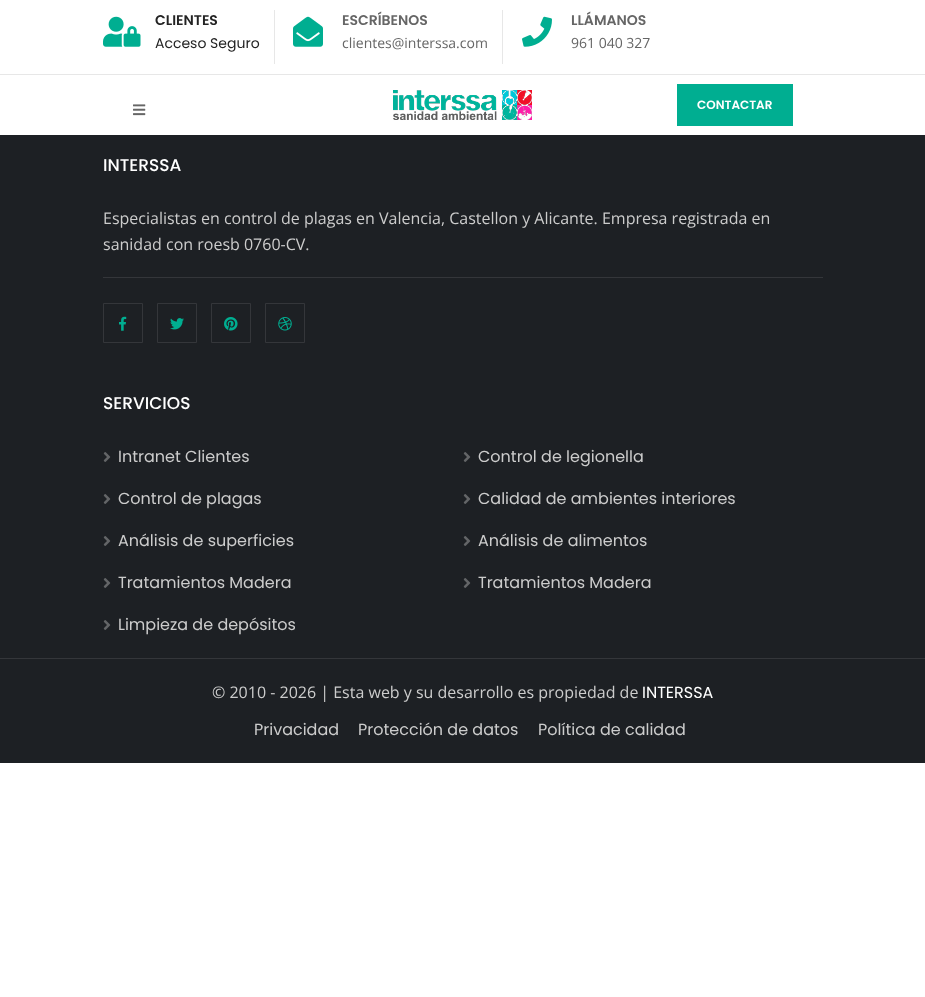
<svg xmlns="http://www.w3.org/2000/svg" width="925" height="997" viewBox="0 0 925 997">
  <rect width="100%" height="100%" fill="#fff"/>
  <path d="M0 74h925v1H0z" fill="#e7e7e7"/>
  <image x="103" y="16" width="38" height="31" href="img/1.png"/>
  <path d="M274 10h1v54H274z" fill="#e7e7e7"/>
  <image x="293" y="16" width="30" height="31" href="img/2.png"/>
  <path d="M502 10h1v54H502z" fill="#e7e7e7"/>
  <image x="522" y="16" width="30" height="31" href="img/3.png"/>
  <image x="133" y="104" width="13" height="12" href="img/4.png"/>
  <image x="393" y="90" width="139" height="30" href="img/5.png"/>
  <path d="M677 84h116v42H677z" fill="#00ae91"/>
  <path d="M0 135h925v628H0z" fill="#1d2024"/>
  <path d="M103 277h720v1H103z" fill="#34363a"/>
  <path d="M103.5 303.5h39v39H103.5z" fill="none" stroke="#34363a"/>
  <image x="119" y="316" width="8" height="15" href="img/6.png"/>
  <path d="M157.5 303.5h39v39H157.5z" fill="none" stroke="#34363a"/>
  <image x="170" y="318" width="14" height="12" href="img/7.png"/>
  <path d="M211.5 303.5h39v39H211.5z" fill="none" stroke="#34363a"/>
  <image x="224" y="317" width="14" height="14" href="img/8.png"/>
  <path d="M265.5 303.5h39v39H265.5z" fill="none" stroke="#34363a"/>
  <image x="278" y="317" width="14" height="14" href="img/9.png"/>
  <image x="103" y="452" width="8" height="10" href="img/10.png"/>
  <image x="463" y="452" width="8" height="10" href="img/10.png"/>
  <image x="103" y="494" width="8" height="10" href="img/10.png"/>
  <image x="463" y="494" width="8" height="10" href="img/10.png"/>
  <image x="103" y="536" width="8" height="10" href="img/10.png"/>
  <image x="463" y="536" width="8" height="10" href="img/10.png"/>
  <image x="103" y="578" width="8" height="10" href="img/10.png"/>
  <image x="463" y="578" width="8" height="10" href="img/10.png"/>
  <image x="103" y="620" width="8" height="10" href="img/10.png"/>
  <path d="M0 658h925v1H0z" fill="#34363a"/>
  <text x="155" y="25" font-family="Poppins" font-size="14" font-weight="600" fill="#232323">CLIENTES</text>
  <text x="155" y="48" font-family="Poppins" font-size="14" fill="#232323">Acceso Seguro</text>
  <text x="342" y="25" font-family="Poppins" font-size="14" font-weight="600" fill="#666">ESCRÍBENOS</text>
  <text x="342" y="48" font-family="Open Sans" font-size="14" fill="#666">clientes@interssa.com</text>
  <text x="571" y="25" font-family="Poppins" font-size="14" font-weight="600" fill="#666">LLÁMANOS</text>
  <text x="571" y="48" font-family="Open Sans" font-size="14" fill="#666">961 040 327</text>
  <text x="697" y="109" font-family="Poppins" font-size="12" font-weight="600" fill="#fff">CONTACTAR</text>
  <text x="103" y="171" font-family="Poppins" font-size="17" font-weight="500" fill="#fff">INTERSSA</text>
  <g font-family="Open Sans" font-size="16" fill="#ccc">
    <text x="103" y="224">Especialistas en control de plagas en Valencia, Castellon y Alicante. Empresa registrada en</text>
    <text x="103" y="250">sanidad con roesb 0760-CV.</text>
  </g>
  <text x="103" y="409" font-family="Poppins" font-size="17" font-weight="500" fill="#fff">SERVICIOS</text>
  <g font-family="Poppins" font-size="16" fill="#ccc">
    <text x="118" y="462">Intranet Clientes</text>
    <text x="478" y="462">Control de legionella</text>
    <text x="118" y="504">Control de plagas</text>
    <text x="478" y="504">Calidad de ambientes interiores</text>
    <text x="118" y="546">Análisis de superficies</text>
    <text x="478" y="546">Análisis de alimentos</text>
    <text x="118" y="588">Tratamientos Madera</text>
    <text x="478" y="588">Tratamientos Madera</text>
    <text x="118" y="630">Limpieza de depósitos</text>
  </g>
  <text x="212" y="698" font-family="Open Sans" font-size="16" fill="#ccc">© 2010 - 2026 | Esta web y su desarrollo es propiedad de</text>
  <text x="642" y="698" font-family="Poppins" font-size="16" fill="#fff">INTERSSA</text>
  <g font-family="Poppins" font-size="16" fill="#ccc">
    <text x="254" y="735">Privacidad</text>
    <text x="358" y="735">Protección de datos</text>
    <text x="538" y="735">Política de calidad</text>
  </g>
</svg>
